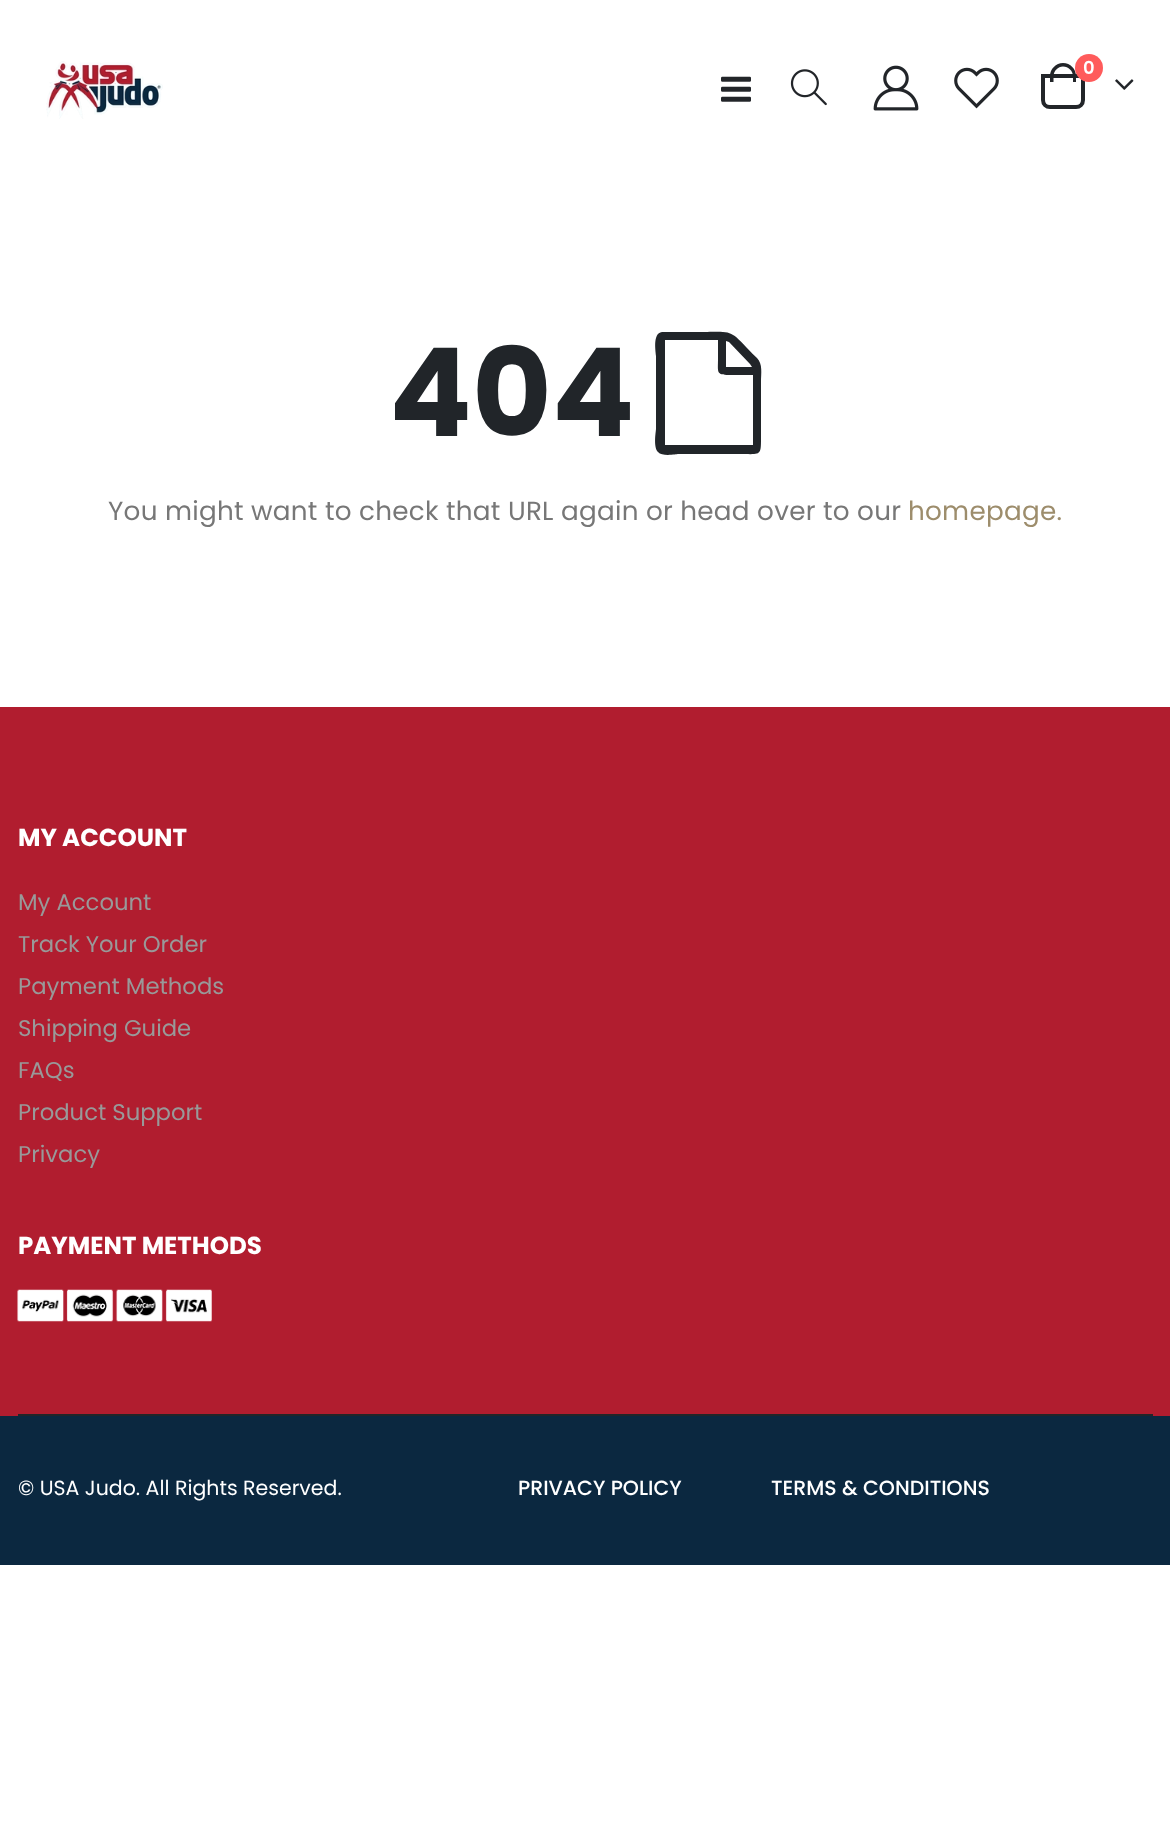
<svg xmlns="http://www.w3.org/2000/svg" width="1170" height="1838" viewBox="0 0 1170 1838">
  <rect width="100%" height="100%" fill="#fff"/>
  <image x="46" y="61" width="117" height="58" href="img/1.png"/>
  <image x="721" y="76" width="30" height="26" href="img/2.png"/>
  <image x="790" y="69" width="37" height="37" href="img/3.png"/>
  <image x="873" y="65" width="46" height="46" href="img/4.png"/>
  <image x="954" y="67" width="45" height="42" href="img/5.png"/>
  <path d="M1043 76H1083V100C1083 104 1080 107 1076 107H1050C1046 107 1043 104 1043 100Z" fill="none" stroke="#222529" stroke-width="4"/>
  <path d="M1063 63C1070.5 63 1076 69 1076 76V82H1050V76C1050 69 1056 63 1063 63ZM1063 66.5C1068.5 66.5 1073 71 1073 76V82H1053.5V76C1053.5 71 1058 66.5 1063 66.5Z" fill="#222529" fill-rule="evenodd"/>
  <circle cx="1089" cy="68" r="14" fill="#ff5b5b"/>
  <image x="1115" y="79" width="19" height="11" href="img/6.png"/>
  <path d="M757 358C763 364 761 374 761 382V434C761 457 762 454 739 454H678C677 454 662 457 658 452C653 447 656 431 656 429V356C656 353 652 333 662 332H693C738 332 726 327 757 358ZM726 341V367H752L750 364L729 342ZM753 445V375H729C716 375 718 372 718 359V340H665V445Z" fill="#212529"/>
  <path d="M0 707h1170v709H0z" fill="#b11d2f"/>
  <image x="17" y="1289" width="195" height="33" href="img/7.png"/>
  <path d="M18 1414h1135v2H18z" fill="#222529"/>
  <path d="M0 1416h1170v149H0z" fill="#0b2840"/>
  <text x="1083" y="74" font-family="Poppins" font-size="18" font-weight="600" fill="#fff">0</text>
  <text x="389" y="436" font-family="Poppins" font-size="122.5" font-weight="bold" fill="#212529">404</text>
  <text x="108" y="520" font-family="Poppins" font-size="26.25" letter-spacing="0.25" fill="#777">You might want to check that URL again or head over to our</text>
  <text x="908" y="520" font-family="Poppins" font-size="26.25" letter-spacing="0.25" fill="#9d8d6c">homepage.</text>
  <text x="18" y="846" font-family="Poppins" font-size="24.5" font-weight="bold" fill="#fff">MY ACCOUNT</text>
  <g font-family="Poppins" font-size="22.75" fill="#999">
    <text x="18" y="910">My Account</text>
    <text x="18" y="952">Track Your Order</text>
    <text x="18" y="994">Payment Methods</text>
    <text x="18" y="1036">Shipping Guide</text>
    <text x="18" y="1078">FAQs</text>
    <text x="18" y="1120">Product Support</text>
    <text x="18" y="1162">Privacy</text>
  </g>
  <text x="18" y="1254" font-family="Poppins" font-size="24.5" font-weight="bold" fill="#fff">PAYMENT METHODS</text>
  <text x="18" y="1495" font-family="Poppins" font-size="20.5" fill="#fff">© USA Judo. All Rights Reserved.</text>
  <g font-family="Poppins" font-size="20.5" font-weight="500" fill="#fff">
    <text x="518" y="1495">PRIVACY POLICY</text>
    <text x="771" y="1495">TERMS &amp; CONDITIONS</text>
  </g>
</svg>
